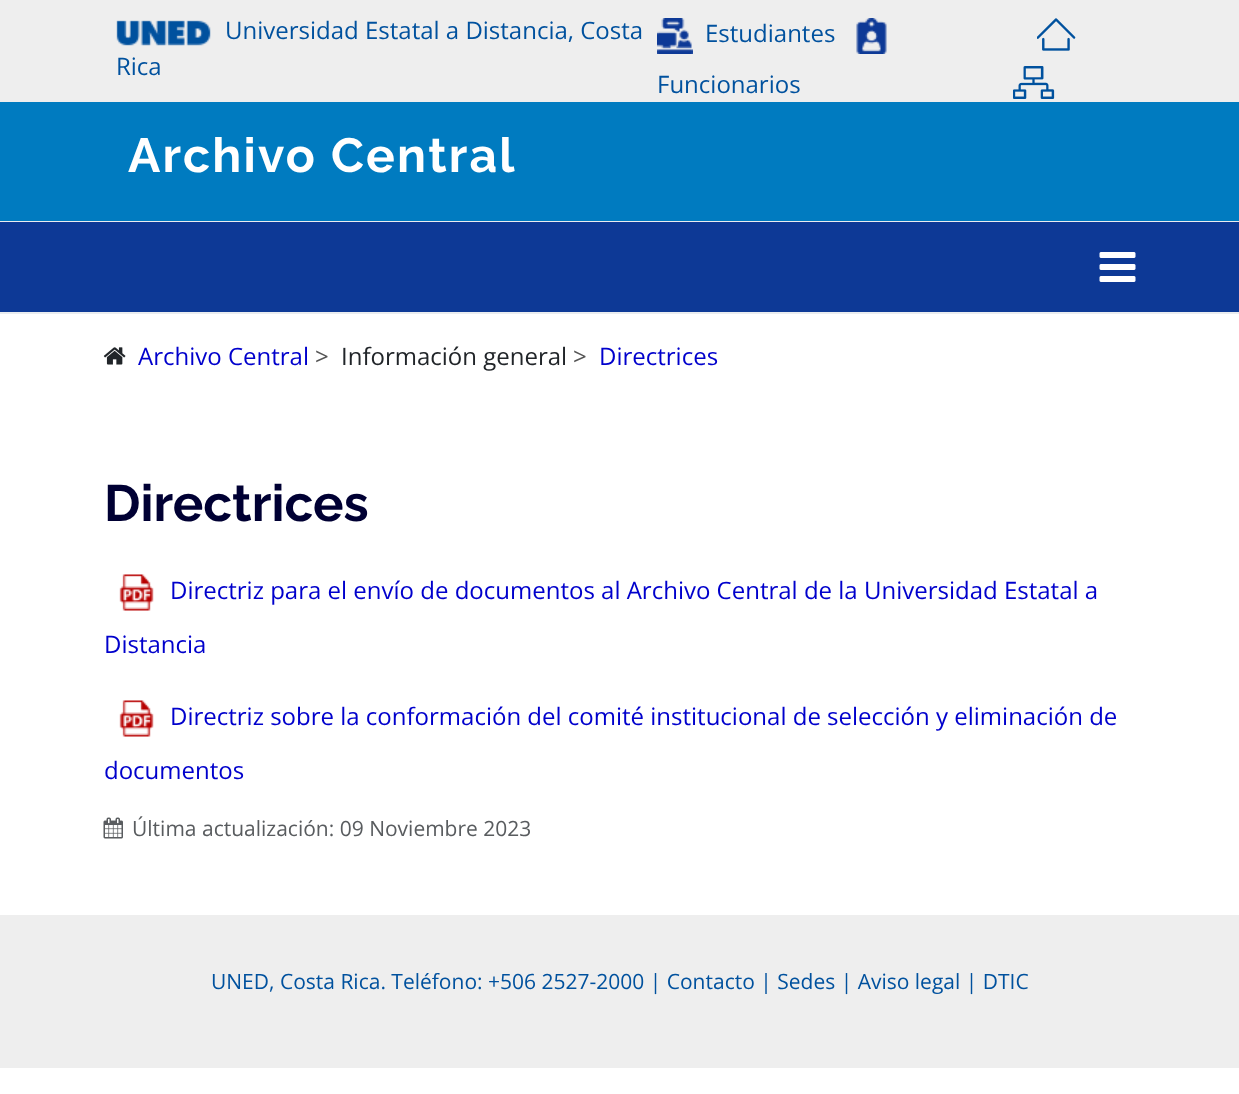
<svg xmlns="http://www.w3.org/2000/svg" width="1239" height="1094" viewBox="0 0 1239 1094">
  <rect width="100%" height="100%" fill="#fff"/>
  <path d="M0 0h1239v102H0z" fill="#eee"/>
  <image x="116" y="20" width="95" height="26" href="img/1.png"/>
  <image x="657" y="18" width="36" height="36" href="img/2.png"/>
  <image x="856" y="18" width="31" height="36" href="img/3.png"/>
  <image x="1037" y="18" width="39" height="33" href="img/4.png"/>
  <image x="1013" y="66" width="42" height="33" href="img/5.png"/>
  <path d="M0 102h1239v119H0z" fill="#007bc0"/>
  <path d="M0 221h1239v1H0z" fill="#e9ecef"/>
  <path d="M0 222h1239v90H0z" fill="#0d3996"/>
  <image x="1099" y="252" width="37" height="30" href="img/6.png"/>
  <path d="M0 312h1239v2H0z" fill="#e9ecef"/>
  <image x="103" y="347" width="23" height="18" href="img/7.png"/>
  <image x="119" y="574" width="35" height="37" href="img/8.png"/>
  <image x="119" y="700" width="35" height="37" href="img/8.png"/>
  <image x="103" y="817" width="20" height="22" href="img/9.png"/>
  <path d="M0 915h1239v153H0z" fill="#eee"/>
  <g font-family="Open Sans" font-size="24" fill="#00519e">
    <text x="225" y="39">Universidad Estatal a Distancia, Costa</text>
    <text x="116" y="75">Rica</text>
    <text x="705" y="42">Estudiantes</text>
    <text x="657" y="93">Funcionarios</text>
  </g>
  <text x="128" y="172" font-family="Raleway" font-size="48" font-weight="bold" letter-spacing="2.25" fill="#fff">Archivo Central</text>
  <text x="138" y="365" font-family="Open Sans" font-size="24" fill="#00c">Archivo Central</text>
  <text x="315" y="365" font-family="Open Sans" font-size="24" fill="#555">&gt;</text>
  <text x="341" y="365" font-family="Open Sans" font-size="24" fill="#212529">Información general</text>
  <text x="573" y="365" font-family="Open Sans" font-size="24" fill="#555">&gt;</text>
  <text x="599" y="365" font-family="Open Sans" font-size="24" fill="#00c">Directrices</text>
  <text x="104" y="521" font-family="Raleway" font-size="51" font-weight="bold" fill="#003">Directrices</text>
  <g font-family="Open Sans" font-size="24" fill="#00c">
    <text x="170" y="599">Directriz para el envío de documentos al Archivo Central de la Universidad Estatal a</text>
    <text x="104" y="653">Distancia</text>
    <text x="170" y="725">Directriz sobre la conformación del comité institucional de selección y eliminación de</text>
    <text x="104" y="779">documentos</text>
  </g>
  <text x="132" y="836" font-family="Open Sans" font-size="21" fill="#595c5f">Última actualización: 09 Noviembre 2023</text>
  <text x="211" y="989" font-family="Open Sans" font-size="21" fill="#00519e">UNED, Costa Rica. Teléfono: +506 2527-2000 | Contacto | Sedes | Aviso legal | DTIC</text>
</svg>
